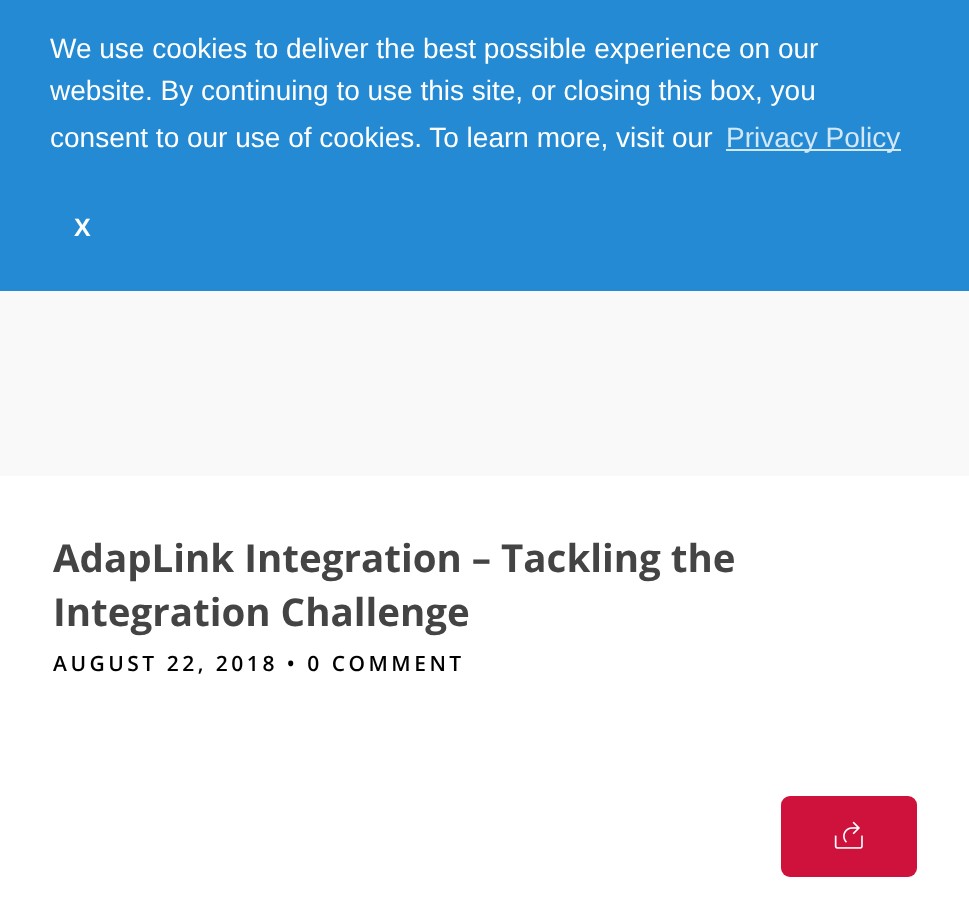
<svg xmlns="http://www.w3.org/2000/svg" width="969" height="907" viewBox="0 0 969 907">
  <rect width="100%" height="100%" fill="#fff"/>
  <path d="M0 0h969v291H0z" fill="#248ad3"/>
  <path d="M726 149h175v2H726z" fill="#d3e8f6"/>
  <path d="M0 291h969v185H0z" fill="#f9f9f9"/>
  <rect x="781" y="796" width="136" height="81" rx="9" fill="#ce123c"/>
  <image x="834" y="821" width="29" height="28" href="img/1.png"/>
  <g font-family="Liberation Sans" font-size="28" fill="#fff">
    <text x="50" y="58">We use cookies to deliver the best possible experience on our</text>
    <text x="50" y="100">website. By continuing to use this site, or closing this box, you</text>
    <text x="50" y="147">consent to our use of cookies. To learn more, visit our</text>
  </g>
  <text x="726" y="147" font-family="Liberation Sans" font-size="28" fill="#d3e8f6">Privacy Policy</text>
  <text x="74" y="236" font-family="Liberation Sans" font-size="25" font-weight="bold" fill="#fff">X</text>
  <g font-family="Open Sans" font-size="38.5" font-weight="bold" fill="#444">
    <text x="53" y="572">AdapLink Integration – Tackling the</text>
    <text x="53" y="626">Integration Challenge</text>
  </g>
  <text x="53" y="671" font-family="Open Sans" font-size="21" font-weight="600" letter-spacing="3.5" fill="#000">AUGUST 22, 2018 • 0 COMMENT</text>
</svg>
